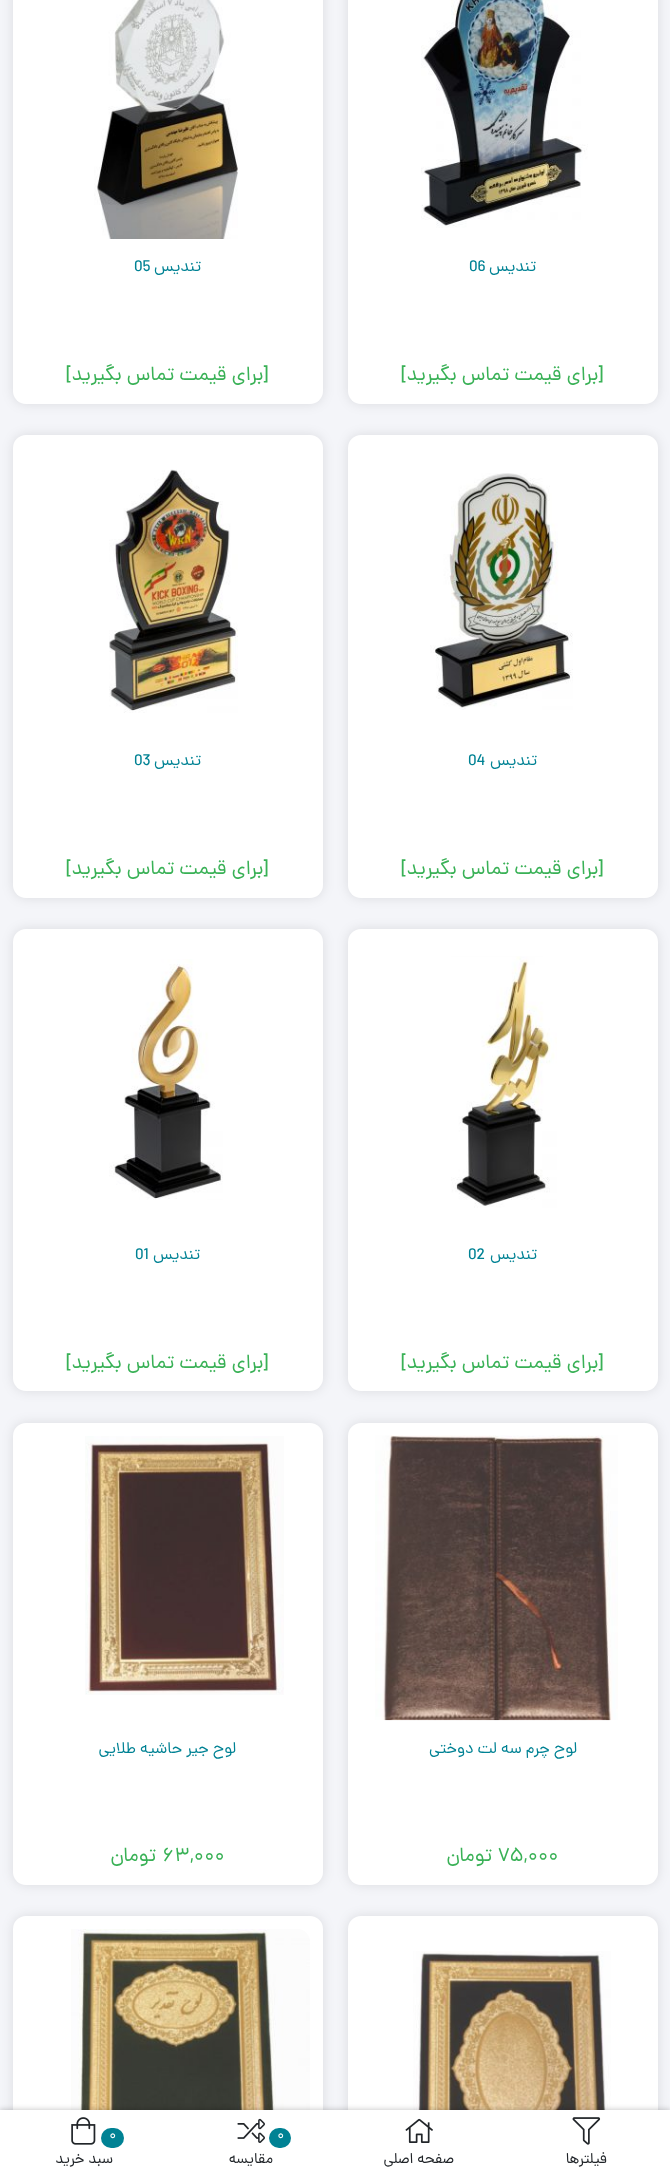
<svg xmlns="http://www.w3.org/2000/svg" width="670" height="2171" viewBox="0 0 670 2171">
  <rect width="100%" height="100%" fill="#f4f5f9"/>
  <rect x="348" y="-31" width="310" height="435" rx="13" fill="#0000001a" filter="blur(6px)"/>
  <rect x="348" y="-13" width="310" height="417" rx="13" fill="#fff"/>
  <image x="421" y="0" width="167" height="228" href="img/1.png"/>
  <rect x="13" y="-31" width="310" height="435" rx="13" fill="#0000001a" filter="blur(6px)"/>
  <rect x="13" y="-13" width="310" height="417" rx="13" fill="#fff"/>
  <image x="94" y="0" width="144" height="239" href="img/2.png"/>
  <rect x="348" y="435" width="310" height="463" rx="13" fill="#0000001a" filter="blur(6px)"/>
  <rect x="348" y="435" width="310" height="463" rx="13" fill="#fff"/>
  <image x="430" y="473" width="143" height="237" href="img/3.png"/>
  <rect x="13" y="435" width="310" height="463" rx="13" fill="#0000001a" filter="blur(6px)"/>
  <rect x="13" y="435" width="310" height="463" rx="13" fill="#fff"/>
  <image x="109" y="469" width="129" height="244" href="img/4.png"/>
  <rect x="348" y="929" width="310" height="462" rx="13" fill="#0000001a" filter="blur(6px)"/>
  <rect x="348" y="929" width="310" height="462" rx="13" fill="#fff"/>
  <image x="451" y="956" width="106" height="252" href="img/5.png"/>
  <rect x="13" y="929" width="310" height="462" rx="13" fill="#0000001a" filter="blur(6px)"/>
  <rect x="13" y="929" width="310" height="462" rx="13" fill="#fff"/>
  <image x="109" y="959" width="114" height="241" href="img/6.png"/>
  <rect x="348" y="1423" width="310" height="462" rx="13" fill="#0000001a" filter="blur(6px)"/>
  <rect x="348" y="1423" width="310" height="462" rx="13" fill="#fff"/>
  <image x="375" y="1435" width="243" height="286" href="img/7.png"/>
  <rect x="13" y="1423" width="310" height="462" rx="13" fill="#0000001a" filter="blur(6px)"/>
  <rect x="13" y="1423" width="310" height="462" rx="13" fill="#fff"/>
  <image x="85" y="1436" width="199" height="259" href="img/8.png"/>
  <rect x="348" y="1916" width="310" height="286" rx="13" fill="#0000001a" filter="blur(6px)"/>
  <rect x="348" y="1916" width="310" height="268" rx="13" fill="#fff"/>
  <image x="413" y="1951" width="198" height="159" href="img/9.png"/>
  <rect x="13" y="1916" width="310" height="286" rx="13" fill="#0000001a" filter="blur(6px)"/>
  <rect x="13" y="1916" width="310" height="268" rx="13" fill="#fff"/>
  <image x="71" y="1929" width="239" height="181" href="img/10.png"/>
  <path d="M0 2109h670v61H0z" fill="#00000030" filter="blur(2.5px)"/>
  <path d="M0 2110h670v61H0z" fill="#fff"/>
  <image x="572" y="2117" width="29" height="28" href="img/11.png"/>
  <image x="405" y="2118" width="28" height="25" href="img/12.png"/>
  <rect x="269" y="2128" width="22" height="20" rx="10" fill="#008294"/>
  <image x="237" y="2118" width="28" height="25" href="img/13.png"/>
  <rect x="101" y="2128" width="23" height="20" rx="10" fill="#008294"/>
  <image x="71" y="2117" width="25" height="28" href="img/14.png"/>
  <text x="536" y="271" font-family="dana" font-size="16.25" direction="rtl" fill="#008294">تندیس</text>
  <text x="469" y="271" font-family="dana" font-size="16.25" fill="#008294">06</text>
  <text x="603" y="380" font-family="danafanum" font-size="20" direction="rtl" fill="#39b156">[برای قیمت تماس بگیرید]</text>
  <text x="201" y="271" font-family="dana" font-size="16.25" direction="rtl" fill="#008294">تندیس</text>
  <text x="134" y="271" font-family="dana" font-size="16.25" fill="#008294">05</text>
  <text x="268" y="380" font-family="danafanum" font-size="20" direction="rtl" fill="#39b156">[برای قیمت تماس بگیرید]</text>
  <text x="537" y="765" font-family="dana" font-size="16.25" direction="rtl" fill="#008294">تندیس</text>
  <text x="468" y="765" font-family="dana" font-size="16.25" fill="#008294">04</text>
  <text x="603" y="874" font-family="danafanum" font-size="20" direction="rtl" fill="#39b156">[برای قیمت تماس بگیرید]</text>
  <text x="201" y="765" font-family="dana" font-size="16.25" direction="rtl" fill="#008294">تندیس</text>
  <text x="134" y="765" font-family="dana" font-size="16.25" fill="#008294">03</text>
  <text x="268" y="874" font-family="danafanum" font-size="20" direction="rtl" fill="#39b156">[برای قیمت تماس بگیرید]</text>
  <text x="537" y="1259" font-family="dana" font-size="16.25" direction="rtl" fill="#008294">تندیس</text>
  <text x="468" y="1259" font-family="dana" font-size="16.25" fill="#008294">02</text>
  <text x="603" y="1368" font-family="danafanum" font-size="20" direction="rtl" fill="#39b156">[برای قیمت تماس بگیرید]</text>
  <text x="200" y="1259" font-family="dana" font-size="16.25" direction="rtl" fill="#008294">تندیس</text>
  <text x="135" y="1259" font-family="dana" font-size="16.25" fill="#008294">01</text>
  <text x="268" y="1368" font-family="danafanum" font-size="20" direction="rtl" fill="#39b156">[برای قیمت تماس بگیرید]</text>
  <text x="577" y="1753" font-family="dana" font-size="16.25" direction="rtl" fill="#008294">لوح چرم سه لت دوختی</text>
  <text x="497" y="1861" font-family="danafanum" font-size="20" fill="#39b156">۷۵,۰۰۰</text>
  <text x="492" y="1861" font-family="danafanum" font-size="20" direction="rtl" fill="#39b156">تومان</text>
  <text x="236" y="1753" font-family="dana" font-size="16.25" direction="rtl" fill="#008294">لوح جیر حاشیه طلایی</text>
  <text x="162" y="1861" font-family="danafanum" font-size="20" fill="#39b156">۶۳,۰۰۰</text>
  <text x="156" y="1861" font-family="danafanum" font-size="20" direction="rtl" fill="#39b156">تومان</text>
  <g font-family="dana" font-size="15" direction="rtl" fill="#212529">
    <text x="607" y="2163">فیلترها</text>
    <text x="454" y="2163">صفحه اصلی</text>
  </g>
  <text x="277" y="2139" font-family="danafanum" font-size="14" fill="#fff">0</text>
  <text x="273" y="2163" font-family="dana" font-size="15" direction="rtl" fill="#212529">مقایسه</text>
  <text x="109" y="2139" font-family="danafanum" font-size="14" fill="#fff">0</text>
  <text x="113" y="2163" font-family="dana" font-size="15" direction="rtl" fill="#212529">سبد خرید</text>
</svg>
